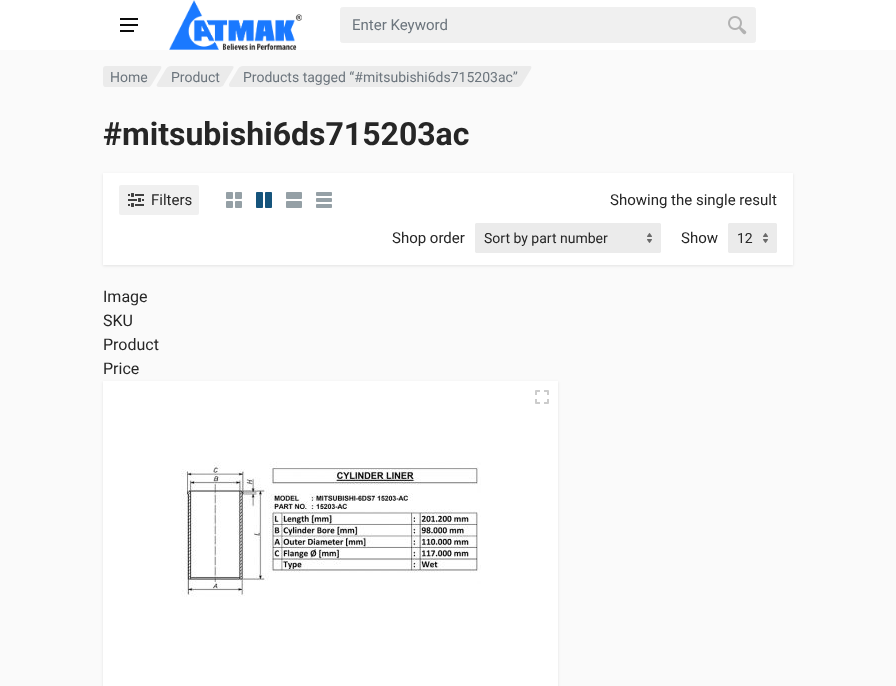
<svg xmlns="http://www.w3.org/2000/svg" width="896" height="686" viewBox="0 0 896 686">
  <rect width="100%" height="100%" fill="#fafafa"/>
  <path d="M0 0h896v50H0z" fill="#fff"/>
  <image x="120" y="18" width="18" height="14" href="img/1.png"/>
  <image x="169" y="0" width="133" height="50" href="img/2.png"/>
  <rect x="340.5" y="7.5" width="415" height="35" rx="2" fill="#f0f0f0" stroke="#f0f0f0"/>
  <image x="728" y="16" width="19" height="19" href="img/3.png"/>
  <path d="M118 66H160C161 66 162 67 161 69L152 84C151 86 149 87 148 87H106C104 87 104 86 105 84L113 69C114 67 116 66 118 66Z" fill="#ebebeb"/>
  <rect x="103" y="66" width="48" height="21" rx="3" fill="#ebebeb"/>
  <path d="M171 66H232C234 66 234 67 233 69L224 84C224 86 221 87 220 87H159C157 87 156 86 157 84L166 69C167 67 169 66 171 66Z" fill="#ebebeb"/>
  <path d="M243 66H530C531 66 532 67 531 69L522 84C521 86 519 87 518 87H231C229 87 229 86 229 84L238 69C239 67 241 66 243 66Z" fill="#ebebeb"/>
  <path d="M103 174h690v92H103z" fill="#00000017" filter="blur(1.5px)"/>
  <path d="M103 173h690v92H103z" fill="#fff"/>
  <rect x="119" y="185" width="80" height="30" rx="2" fill="#f0f0f0"/>
  <image x="128" y="193" width="16" height="14" href="img/4.png"/>
  <image x="226" y="192" width="16" height="16" href="img/5.png"/>
  <image x="256" y="192" width="16" height="16" href="img/6.png"/>
  <image x="286" y="192" width="16" height="16" href="img/7.png"/>
  <image x="316" y="192" width="16" height="16" href="img/8.png"/>
  <rect x="475" y="223" width="186" height="30" rx="2" fill="#ebebeb"/>
  <image x="647" y="233" width="5" height="10" href="img/9.png"/>
  <rect x="475.5" y="223.5" width="185" height="29" rx="1.5" fill="none" stroke="#ebebeb"/>
  <rect x="728" y="223" width="49" height="30" rx="2" fill="#ebebeb"/>
  <image x="763" y="233" width="5" height="10" href="img/9.png"/>
  <rect x="728.5" y="223.5" width="48" height="29" rx="1.5" fill="none" stroke="#ebebeb"/>
  <path d="M103 382h455v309H103z" fill="#00000017" filter="blur(1.5px)"/>
  <path d="M103 381h455v305H103z" fill="#fff"/>
  <image x="535" y="390" width="14" height="14" href="img/10.png"/>
  <image x="181" y="461" width="300" height="136" href="img/11.png"/>
  <text x="352" y="30" font-family="Roboto" font-size="15" fill="#6c757d">Enter Keyword</text>
  <g font-family="Roboto" font-size="14" fill="#6c757d">
    <text x="110" y="82">Home</text>
    <text x="171" y="82">Product</text>
    <text x="243" y="82">Products tagged “#mitsubishi6ds715203ac”</text>
  </g>
  <text x="103" y="145" font-family="Roboto" font-size="32" font-weight="bold" fill="#262626">#mitsubishi6ds715203ac</text>
  <g font-family="Roboto" font-size="15" fill="#262626">
    <text x="151" y="205">Filters</text>
    <text x="610" y="205">Showing the single result</text>
    <text x="392" y="243">Shop order</text>
  </g>
  <text x="484" y="243" font-family="Roboto" font-size="14" fill="#262626">Sort by part number</text>
  <text x="681" y="243" font-family="Roboto" font-size="15" fill="#262626">Show</text>
  <text x="737" y="243" font-family="Roboto" font-size="14" fill="#262626">12</text>
  <g font-family="Roboto" font-size="16" fill="#262626">
    <text x="103" y="302">Image</text>
    <text x="103" y="326">SKU</text>
    <text x="103" y="350">Product</text>
    <text x="103" y="374">Price</text>
  </g>
</svg>
